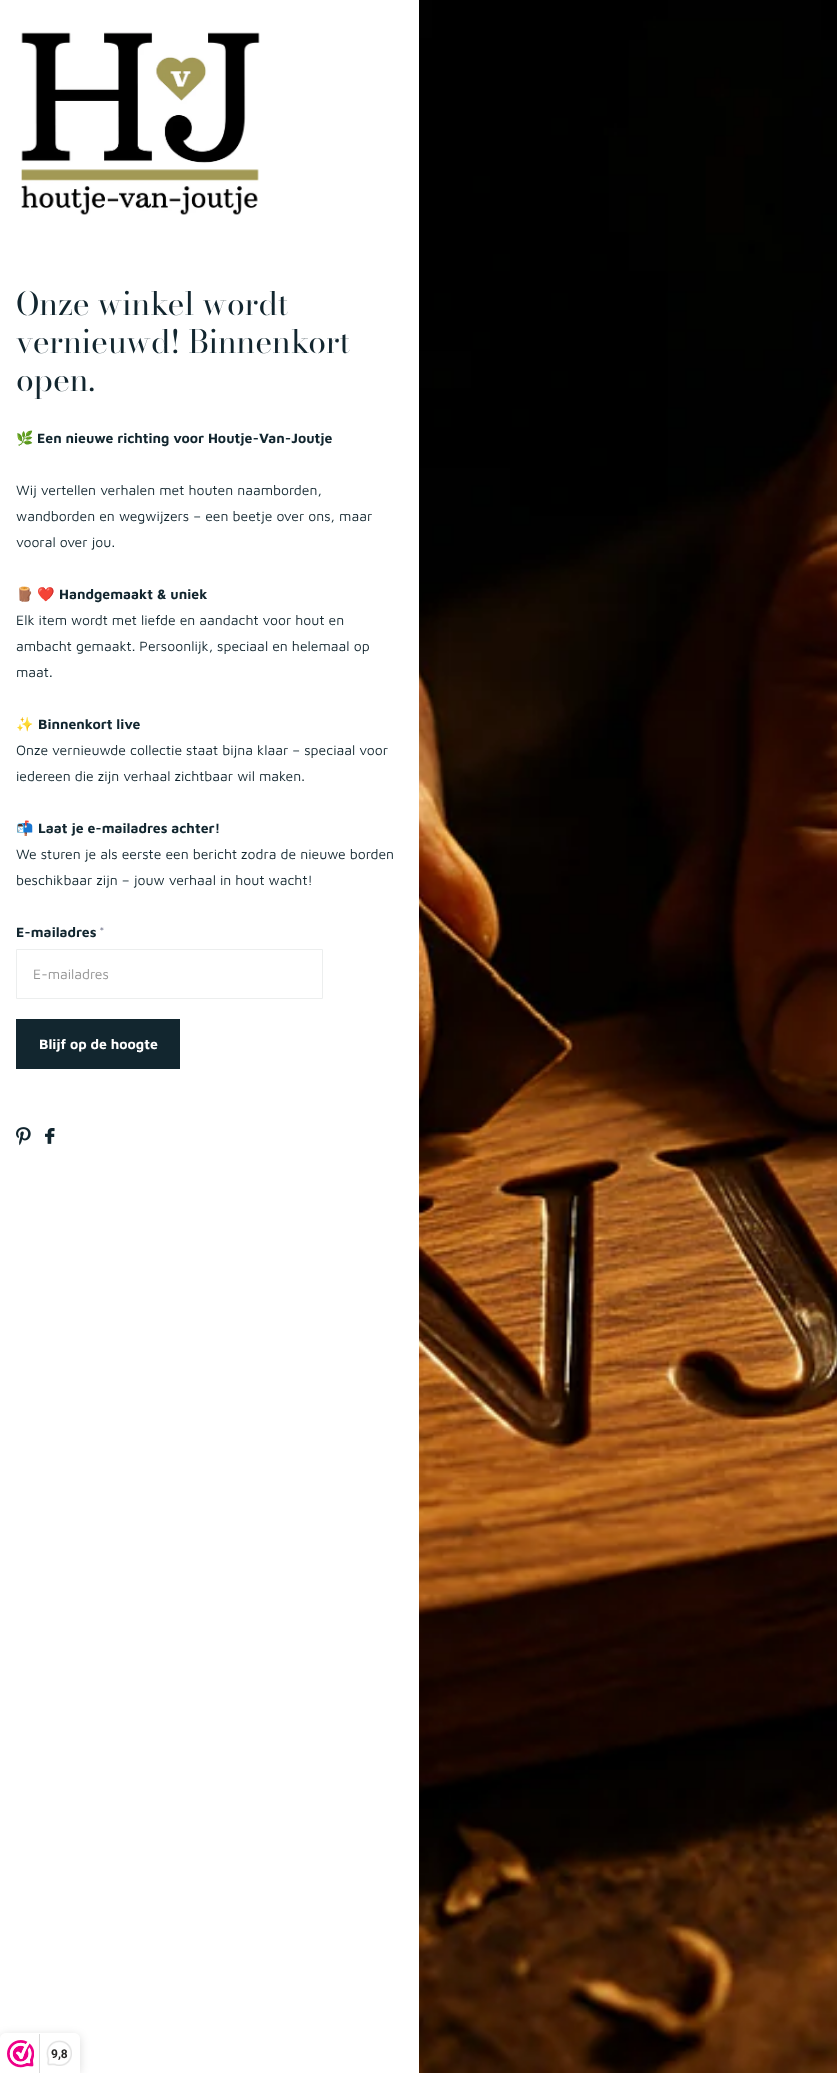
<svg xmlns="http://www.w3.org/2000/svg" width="837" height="2073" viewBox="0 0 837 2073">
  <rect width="100%" height="100%" fill="#fff"/>
  <image x="21" y="32" width="239" height="183" href="img/1.png"/>
  <path d="M16.5 949.5h306v49H16.5z" fill="none" stroke="#eceeee"/>
  <path d="M16 1019h164v50H16z" fill="#12262f"/>
  <image x="16" y="1127" width="15" height="19" href="img/2.png"/>
  <image x="45" y="1128" width="10" height="16" href="img/3.png"/>
  <image x="419" y="0" width="418" height="2073" href="img/4.png"/>
  <rect y="2035" width="80" height="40" rx="6" fill="#00000026" filter="blur(5px)"/>
  <path d="M6 2033H74C77.5 2033 80 2035.5 80 2039V2073H0V2039C0 2035.5 2.5 2033 6 2033Z" fill="#fff"/>
  <image x="7" y="2040" width="27" height="28" href="img/5.png"/>
  <path d="M39 2034h1v39H39z" fill="#d9d9d9"/>
  <image x="46" y="2040" width="26" height="26" href="img/6.png"/>
  <g font-family="Bodoni Moda" font-size="32" fill="#12262f">
    <text x="16" y="315">Onze winkel wordt</text>
    <text x="16" y="353">vernieuwd! Binnenkort</text>
    <text x="16" y="391">open.</text>
  </g>
  <text x="16" y="443" font-family="Noto Color Emoji" font-size="14" fill="#12262f">🌿</text>
  <text x="37" y="443" font-family="Maven Pro" font-size="14" font-weight="bold" fill="#12262f">Een nieuwe richting voor Houtje-Van-Joutje</text>
  <g font-family="Maven Pro" font-size="14" fill="#12262f">
    <text x="16" y="495">Wij vertellen verhalen met houten naamborden,</text>
    <text x="16" y="521">wandborden en wegwijzers – een beetje over ons, maar</text>
    <text x="16" y="547">vooral over jou.</text>
  </g>
  <g font-family="Noto Color Emoji" font-size="14" fill="#12262f">
    <text x="16" y="599">🪵</text>
    <text x="37" y="599">❤️</text>
  </g>
  <text x="59" y="599" font-family="Maven Pro" font-size="14" font-weight="bold" fill="#12262f">Handgemaakt &amp; uniek</text>
  <g font-family="Maven Pro" font-size="14" fill="#12262f">
    <text x="16" y="625">Elk item wordt met liefde en aandacht voor hout en</text>
    <text x="16" y="651">ambacht gemaakt. Persoonlijk, speciaal en helemaal op</text>
    <text x="16" y="677">maat.</text>
  </g>
  <text x="16" y="729" font-family="Noto Color Emoji" font-size="14" fill="#12262f">✨</text>
  <text x="38" y="729" font-family="Maven Pro" font-size="14" font-weight="bold" fill="#12262f">Binnenkort live</text>
  <g font-family="Maven Pro" font-size="14" fill="#12262f">
    <text x="16" y="755">Onze vernieuwde collectie staat bijna klaar – speciaal voor</text>
    <text x="16" y="781">iedereen die zijn verhaal zichtbaar wil maken.</text>
  </g>
  <text x="16" y="833" font-family="Noto Color Emoji" font-size="14" fill="#12262f">📬</text>
  <text x="38" y="833" font-family="Maven Pro" font-size="14" font-weight="bold" fill="#12262f">Laat je e-mailadres achter!</text>
  <g font-family="Maven Pro" font-size="14" fill="#12262f">
    <text x="16" y="859">We sturen je als eerste een bericht zodra de nieuwe borden</text>
    <text x="16" y="885">beschikbaar zijn – jouw verhaal in hout wacht!</text>
  </g>
  <text x="16" y="937" font-family="Maven Pro" font-size="14" font-weight="bold" fill="#12262f">E-mailadres</text>
  <text x="99" y="937" font-family="Maven Pro" font-size="14" fill="#75788e">*</text>
  <text x="33" y="979" font-family="Maven Pro" font-size="14" fill="#959595">E-mailadres</text>
  <text x="39" y="1049" font-family="Maven Pro" font-size="14" font-weight="bold" fill="#fff">Blijf op de hoogte</text>
  <text x="51" y="2058" font-family="Roboto" font-size="12" font-weight="bold" fill="#272626">9,8</text>
</svg>
